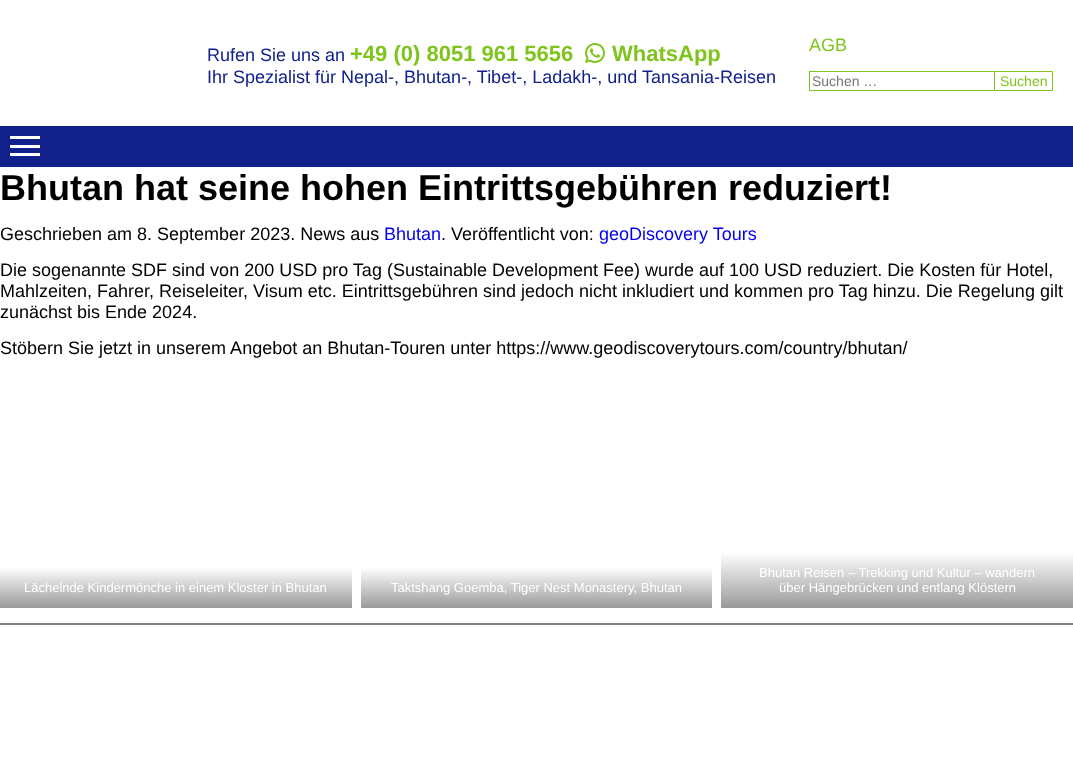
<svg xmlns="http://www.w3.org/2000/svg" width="1073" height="759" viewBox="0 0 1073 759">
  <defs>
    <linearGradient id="g1" gradientUnits="userSpaceOnUse" x1="176" y1="608" x2="176" y2="567"><stop offset="0" stop-color="#999"/><stop offset="1" stop-color="#fff"/></linearGradient>
    <linearGradient id="g2" gradientUnits="userSpaceOnUse" x1="537" y1="608" x2="537" y2="567"><stop offset="0" stop-color="#999"/><stop offset="1" stop-color="#fff"/></linearGradient>
    <linearGradient id="g3" gradientUnits="userSpaceOnUse" x1="897" y1="608" x2="897" y2="552"><stop offset="0" stop-color="#999"/><stop offset="1" stop-color="#fff"/></linearGradient>
  </defs>
  <rect width="100%" height="100%" fill="#fff"/>
  <image x="585" y="43" width="20" height="20" href="img/1.png"/>
  <path d="M809 71h185v1H809z" fill="#7fc41c"/>
  <path d="M809 90h185v1H809z" fill="#7fc41c"/>
  <path d="M809 71h1v20H809z" fill="#7fc41c"/>
  <path d="M994.5 71.5h58v19H994.5z" fill="none" stroke="#7fc41c"/>
  <path d="M0 126h1073v41H0z" fill="#10218b"/>
  <path d="M10 136h30v3H10z" fill="#fff"/>
  <path d="M10 145h30v3H10z" fill="#fff"/>
  <path d="M10 153h30v3H10z" fill="#fff"/>
  <path d="M0 568h352v40H0z" fill="url(#g1)"/>
  <path d="M361 568h351v40H361z" fill="url(#g2)"/>
  <path d="M721 553h352v55H721z" fill="url(#g3)"/>
  <path d="M0 623h1073v2H0z" fill="#808080"/>
  <text x="207" y="61" font-family="Liberation Sans" font-size="18" fill="#10218b">Rufen Sie uns an</text>
  <g font-family="Liberation Sans" font-size="22" font-weight="bold" fill="#7fc41c">
    <text x="350" y="61">+49 (0) 8051 961 5656</text>
    <text x="612" y="61">WhatsApp</text>
  </g>
  <text x="207" y="83" font-family="Liberation Sans" font-size="18" fill="#10218b">Ihr Spezialist für Nepal-, Bhutan-, Tibet-, Ladakh-, und Tansania-Reisen</text>
  <text x="809" y="51" font-family="Liberation Sans" font-size="18" fill="#7fc41c">AGB</text>
  <text x="812" y="86" font-family="Liberation Sans" font-size="14" fill="#757575">Suchen …</text>
  <text x="1000" y="86" font-family="Liberation Sans" font-size="14" fill="#7fc41c">Suchen</text>
  <text x="0" y="200" font-family="Liberation Sans" font-size="36" font-weight="bold" fill="#000">Bhutan hat seine hohen Eintrittsgebühren reduziert!</text>
  <text x="0" y="240" font-family="Liberation Sans" font-size="18" fill="#000">Geschrieben am 8. September 2023. News aus</text>
  <text x="384" y="240" font-family="Liberation Sans" font-size="18" fill="#00e">Bhutan</text>
  <text x="441" y="240" font-family="Liberation Sans" font-size="18" fill="#000">. Veröffentlicht von:</text>
  <text x="599" y="240" font-family="Liberation Sans" font-size="18" fill="#00e">geoDiscovery Tours</text>
  <g font-family="Liberation Sans" font-size="18" fill="#000">
    <text x="0" y="276">Die sogenannte SDF sind von 200 USD pro Tag (Sustainable Development Fee) wurde auf 100 USD reduziert. Die Kosten für Hotel,</text>
    <text x="0" y="297">Mahlzeiten, Fahrer, Reiseleiter, Visum etc. Eintrittsgebühren sind jedoch nicht inkludiert und kommen pro Tag hinzu. Die Regelung gilt</text>
    <text x="0" y="318">zunächst bis Ende 2024.</text>
    <text x="0" y="354">Stöbern Sie jetzt in unserem Angebot an Bhutan-Touren unter https://www.geodiscoverytours.com/country/bhutan/</text>
  </g>
  <g font-family="Liberation Sans" font-size="13" fill="#fff">
    <text x="24" y="592">Lächelnde Kindermönche in einem Kloster in Bhutan</text>
    <text x="391" y="592">Taktshang Goemba, Tiger Nest Monastery, Bhutan</text>
    <text x="759" y="577">Bhutan Reisen – Trekking und Kultur – wandern</text>
    <text x="779" y="592">über Hängebrücken und entlang Klöstern</text>
  </g>
</svg>
